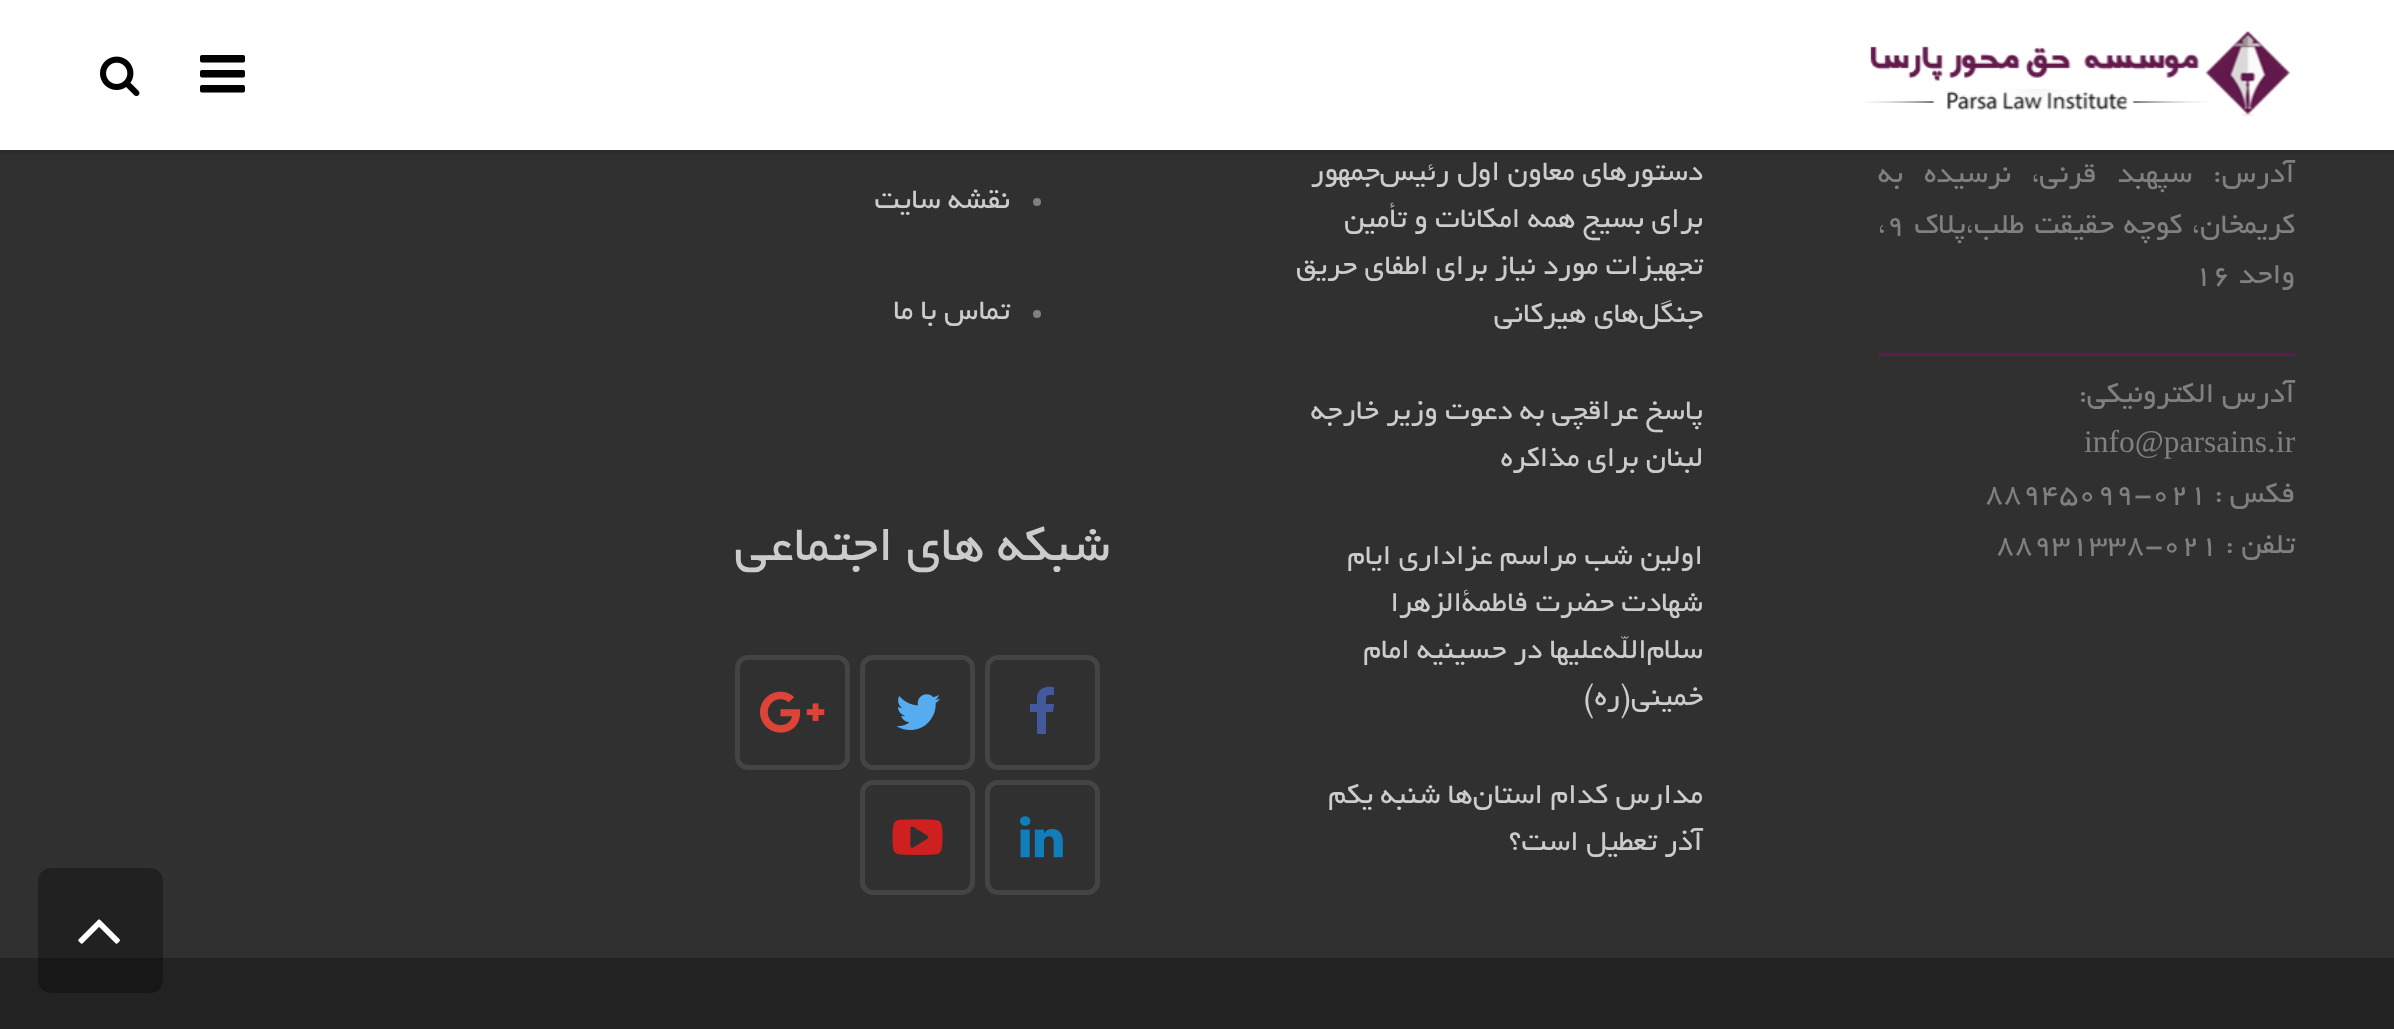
<svg xmlns="http://www.w3.org/2000/svg" width="2394" height="1029" viewBox="0 0 2394 1029">
  <rect width="100%" height="100%" fill="#303030"/>
  <path d="M0 150h2394v3H0z" fill="#2c2c2c"/>
  <path d="M0 0h2394v150H0z" fill="#fff"/>
  <image x="1863" y="31" width="428" height="85" href="img/1.png"/>
  <image x="200" y="55" width="45" height="38" href="img/2.png"/>
  <image x="100" y="56" width="40" height="41" href="img/3.png"/>
  <path d="M1878 353h417v3H1878z" fill="#621a4c"/>
  <circle cx="1037" cy="202" r="4" fill="#808080"/>
  <circle cx="1037" cy="314" r="4" fill="#808080"/>
  <rect x="987.5" y="657.5" width="110" height="110" rx="10.5" fill="none" stroke="#444" stroke-width="5"/>
  <path d="M1054 687V695C1045 695 1046 695 1046 704H1054L1053 712H1046V734H1037V712H1030V704H1037V696C1039 687 1047 686 1054 687Z" fill="#42599e"/>
  <rect x="862.5" y="657.5" width="110" height="110" rx="10.5" fill="none" stroke="#444" stroke-width="5"/>
  <image x="896" y="694" width="44" height="36" href="img/4.png"/>
  <rect x="737.5" y="657.5" width="110" height="110" rx="10.5" fill="none" stroke="#444" stroke-width="5"/>
  <image x="760" y="691" width="65" height="42" href="img/5.png"/>
  <rect x="987.5" y="782.5" width="110" height="110" rx="10.5" fill="none" stroke="#444" stroke-width="5"/>
  <image x="1020" y="816" width="43" height="42" href="img/6.png"/>
  <rect x="862.5" y="782.5" width="110" height="110" rx="10.5" fill="none" stroke="#444" stroke-width="5"/>
  <image x="892" y="819" width="51" height="36" href="img/7.png"/>
  <path d="M0 958h2394v71H0z" fill="#222"/>
  <rect x="38" y="868" width="125" height="125" rx="13" fill="#0000004d"/>
  <image x="78" y="919" width="42" height="25" href="img/8.png"/>
  <g font-family="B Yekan" font-size="31.5" direction="rtl" fill="#808080">
    <text x="2295" y="182" word-spacing="13.5">آدرس: سپهبد قرنی، نرسیده به</text>
    <text x="2295" y="233" word-spacing="2.5">کریمخان، کوچه حقیقت طلب،پلاک</text>
  </g>
  <text x="1878" y="233" font-family="B Yekan" font-size="31.5" fill="#808080">،9</text>
  <text x="2295" y="283" font-family="B Yekan" font-size="31.5" direction="rtl" fill="#808080">واحد</text>
  <text x="2194" y="283" font-family="B Yekan" font-size="31.5" fill="#808080">16</text>
  <text x="2295" y="402" font-family="B Yekan" font-size="31.5" direction="rtl" fill="#808080">آدرس الکترونیکی:</text>
  <text x="2276" y="452" font-family="Liberation Serif" font-size="31.5" fill="#808080">ir</text>
  <text x="2267" y="452" font-family="B Yekan" font-size="31.5" fill="#808080">.</text>
  <text x="2084" y="452" font-family="Liberation Serif" font-size="31.5" fill="#808080">info@parsains</text>
  <text x="2295" y="502" font-family="B Yekan" font-size="31.5" direction="rtl" fill="#808080">فکس :</text>
  <text x="1985" y="502" font-family="B Yekan" font-size="31.5" fill="#808080">88945099-021</text>
  <text x="2295" y="553" font-family="B Yekan" font-size="31.5" direction="rtl" fill="#808080">تلفن :</text>
  <text x="1996" y="553" font-family="B Yekan" font-size="31.5" fill="#808080">88931338-021</text>
  <g font-family="B Yekan" font-size="31.5" direction="rtl" fill="#ccc">
    <text x="1703" y="180">دستورهای معاون اول رئیس‌جمهور</text>
    <text x="1703" y="227">برای بسیج همه امکانات و تأمین</text>
    <text x="1703" y="274">تجهیزات مورد نیاز برای اطفای حریق</text>
    <text x="1703" y="322">جنگل‌های هیرکانی</text>
    <text x="1703" y="419">پاسخ عراقچی به دعوت وزیر خارجه</text>
    <text x="1703" y="466">لبنان برای مذاکره</text>
    <text x="1703" y="564">اولین شب مراسم عزاداری ایام</text>
    <text x="1703" y="611">شهادت حضرت فاطمةالزهرا</text>
    <text x="1703" y="658">سلام‌الله‌علیها در حسینیه امام</text>
    <text x="1703" y="705">خمینی(ره)</text>
    <text x="1703" y="803">مدارس کدام استان‌ها شنبه یکم</text>
    <text x="1703" y="850">آذر تعطیل است؟</text>
    <text x="1010" y="208">نقشه سایت</text>
    <text x="1010" y="319">تماس با ما</text>
  </g>
  <text x="1110" y="560" font-family="B Yekan" font-size="55" direction="rtl" fill="#ccc">شبکه های اجتماعی</text>
</svg>
